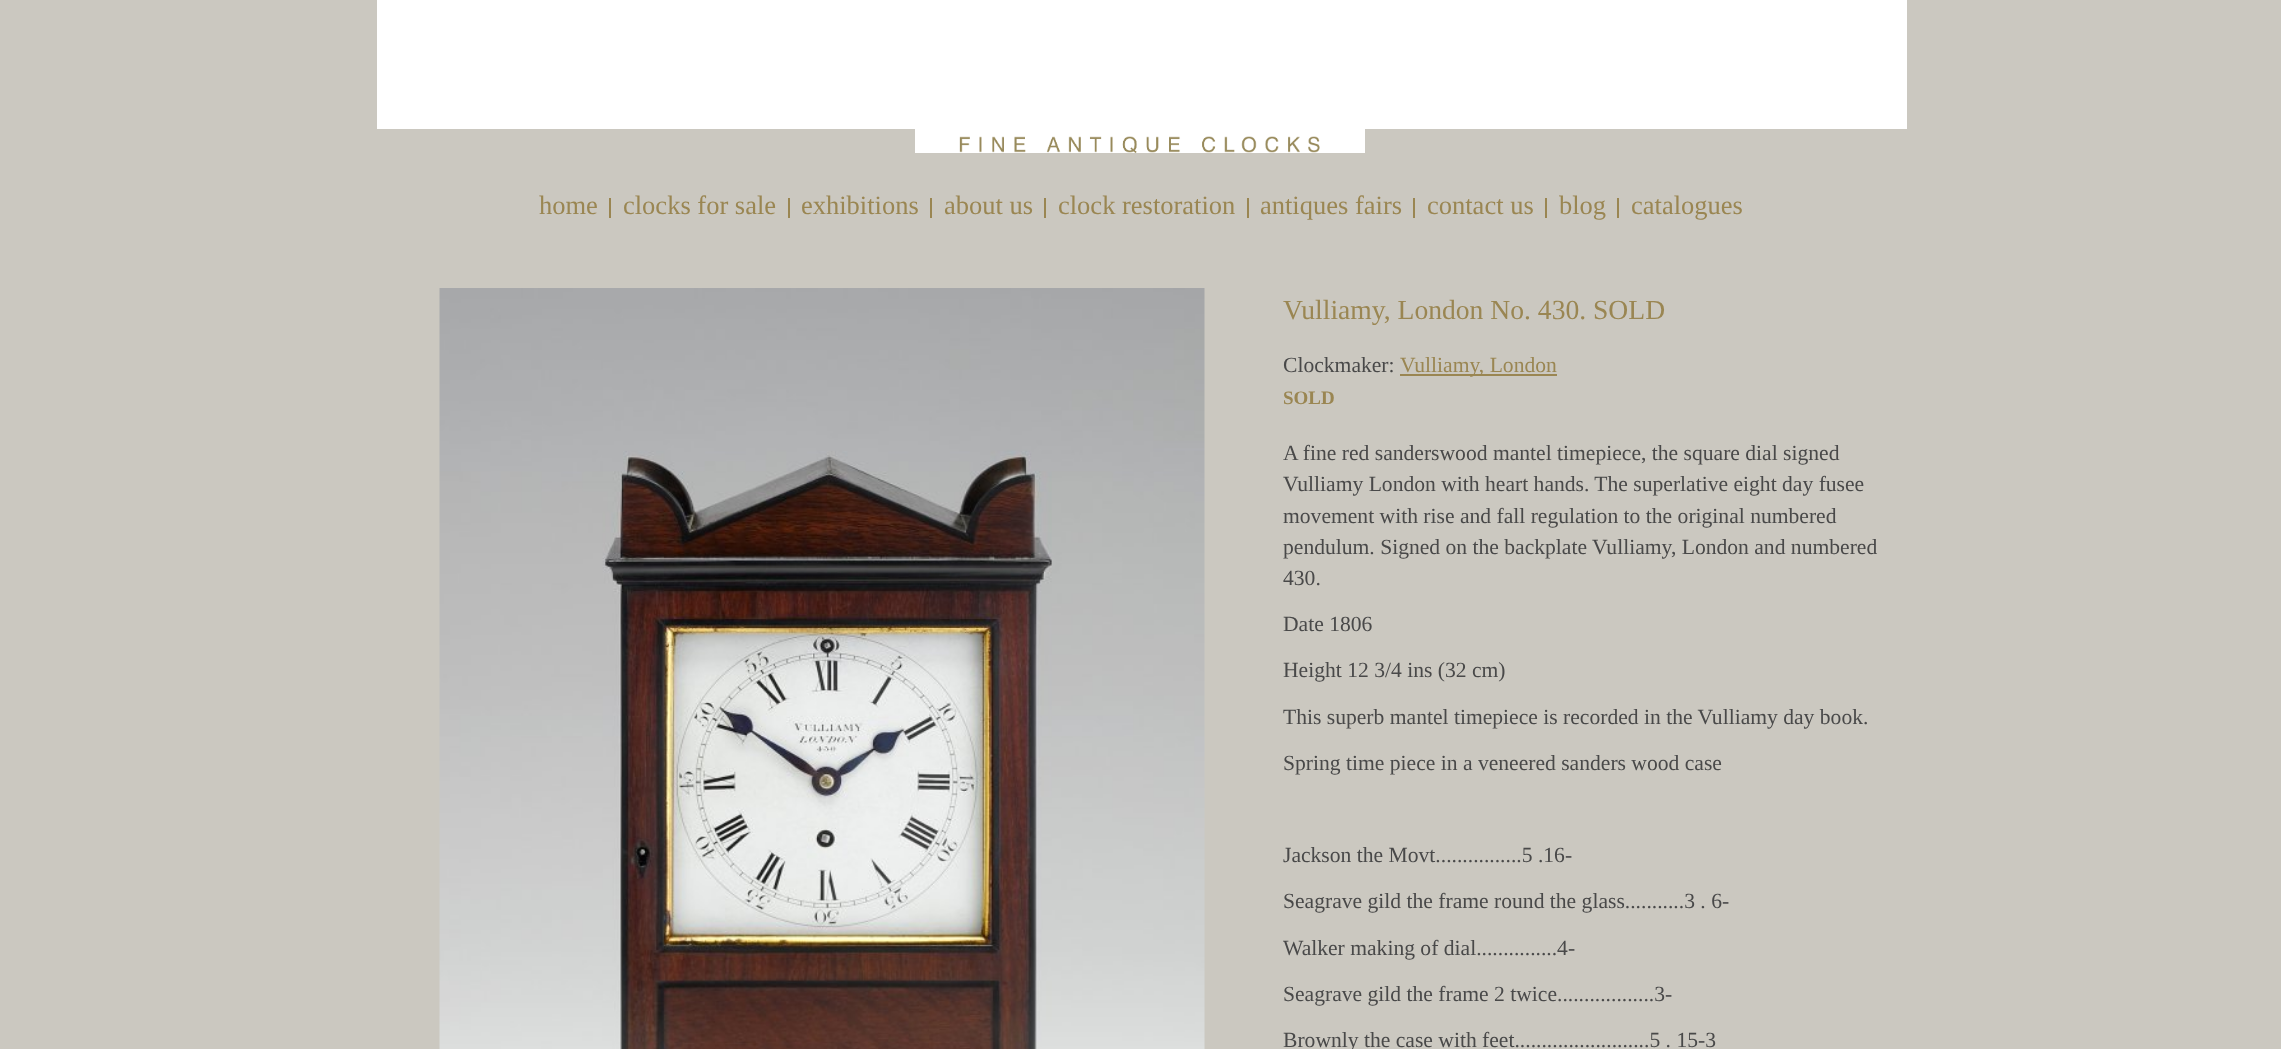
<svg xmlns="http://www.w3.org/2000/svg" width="2281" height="1049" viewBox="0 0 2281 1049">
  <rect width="100%" height="100%" fill="#cbc8c0"/>
  <image x="915" y="129" width="450" height="24" href="img/1.png"/>
  <path d="M377 0h1530v129H377z" fill="#fff"/>
  <path d="M609 198h2v20H609z" fill="#9a8652"/>
  <path d="M788 198h2v20H788z" fill="#9a8652"/>
  <path d="M930 198h2v20H930z" fill="#9a8652"/>
  <path d="M1044 198h2v20H1044z" fill="#9a8652"/>
  <path d="M1247 198h2v20H1247z" fill="#9a8652"/>
  <path d="M1413 198h2v20H1413z" fill="#9a8652"/>
  <path d="M1545 198h2v20H1545z" fill="#9a8652"/>
  <path d="M1617 198h2v20H1617z" fill="#9a8652"/>
  <image x="439" y="288" width="766" height="761" href="img/2.png"/>
  <path d="M1400 374h157v2H1400z" fill="#9a8652"/>
  <g font-family="Liberation Serif" font-size="26.5" fill="#9a8652">
    <text x="539" y="214">home</text>
    <text x="623" y="214">clocks for sale</text>
    <text x="801" y="214">exhibitions</text>
    <text x="944" y="214">about us</text>
    <text x="1058" y="214">clock restoration</text>
    <text x="1260" y="214">antiques fairs</text>
    <text x="1427" y="214">contact us</text>
    <text x="1559" y="214">blog</text>
    <text x="1631" y="214">catalogues</text>
  </g>
  <text x="1283" y="319" font-family="Liberation Serif" font-size="27.6" fill="#9a8652">Vulliamy, London No. 430. SOLD</text>
  <text x="1283" y="372" font-family="Liberation Serif" font-size="21.6" fill="#494949">Clockmaker:</text>
  <text x="1400" y="372" font-family="Liberation Serif" font-size="21.6" fill="#9a8652">Vulliamy, London</text>
  <text x="1283" y="404" font-family="Liberation Serif" font-size="19" font-weight="bold" fill="#9a8652">SOLD</text>
  <g font-family="Liberation Serif" font-size="21.6" fill="#494949">
    <text x="1283" y="460">A fine red sanderswood mantel timepiece, the square dial signed</text>
    <text x="1283" y="491">Vulliamy London with heart hands. The superlative eight day fusee</text>
    <text x="1283" y="523">movement with rise and fall regulation to the original numbered</text>
    <text x="1283" y="554">pendulum. Signed on the backplate Vulliamy, London and numbered</text>
    <text x="1283" y="585">430.</text>
    <text x="1283" y="631">Date 1806</text>
    <text x="1283" y="677">Height 12 3/4 ins (32 cm)</text>
    <text x="1283" y="724">This superb mantel timepiece is recorded in the Vulliamy day book.</text>
    <text x="1283" y="770">Spring time piece in a veneered sanders wood case</text>
    <text x="1283" y="862">Jackson the Movt................5 .16-</text>
    <text x="1283" y="908">Seagrave gild the frame round the glass...........3 . 6-</text>
    <text x="1283" y="955">Walker making of dial...............4-</text>
    <text x="1283" y="1001">Seagrave gild the frame 2 twice..................3-</text>
    <text x="1283" y="1047">Brownly the case with feet.........................5 . 15-3</text>
  </g>
</svg>
